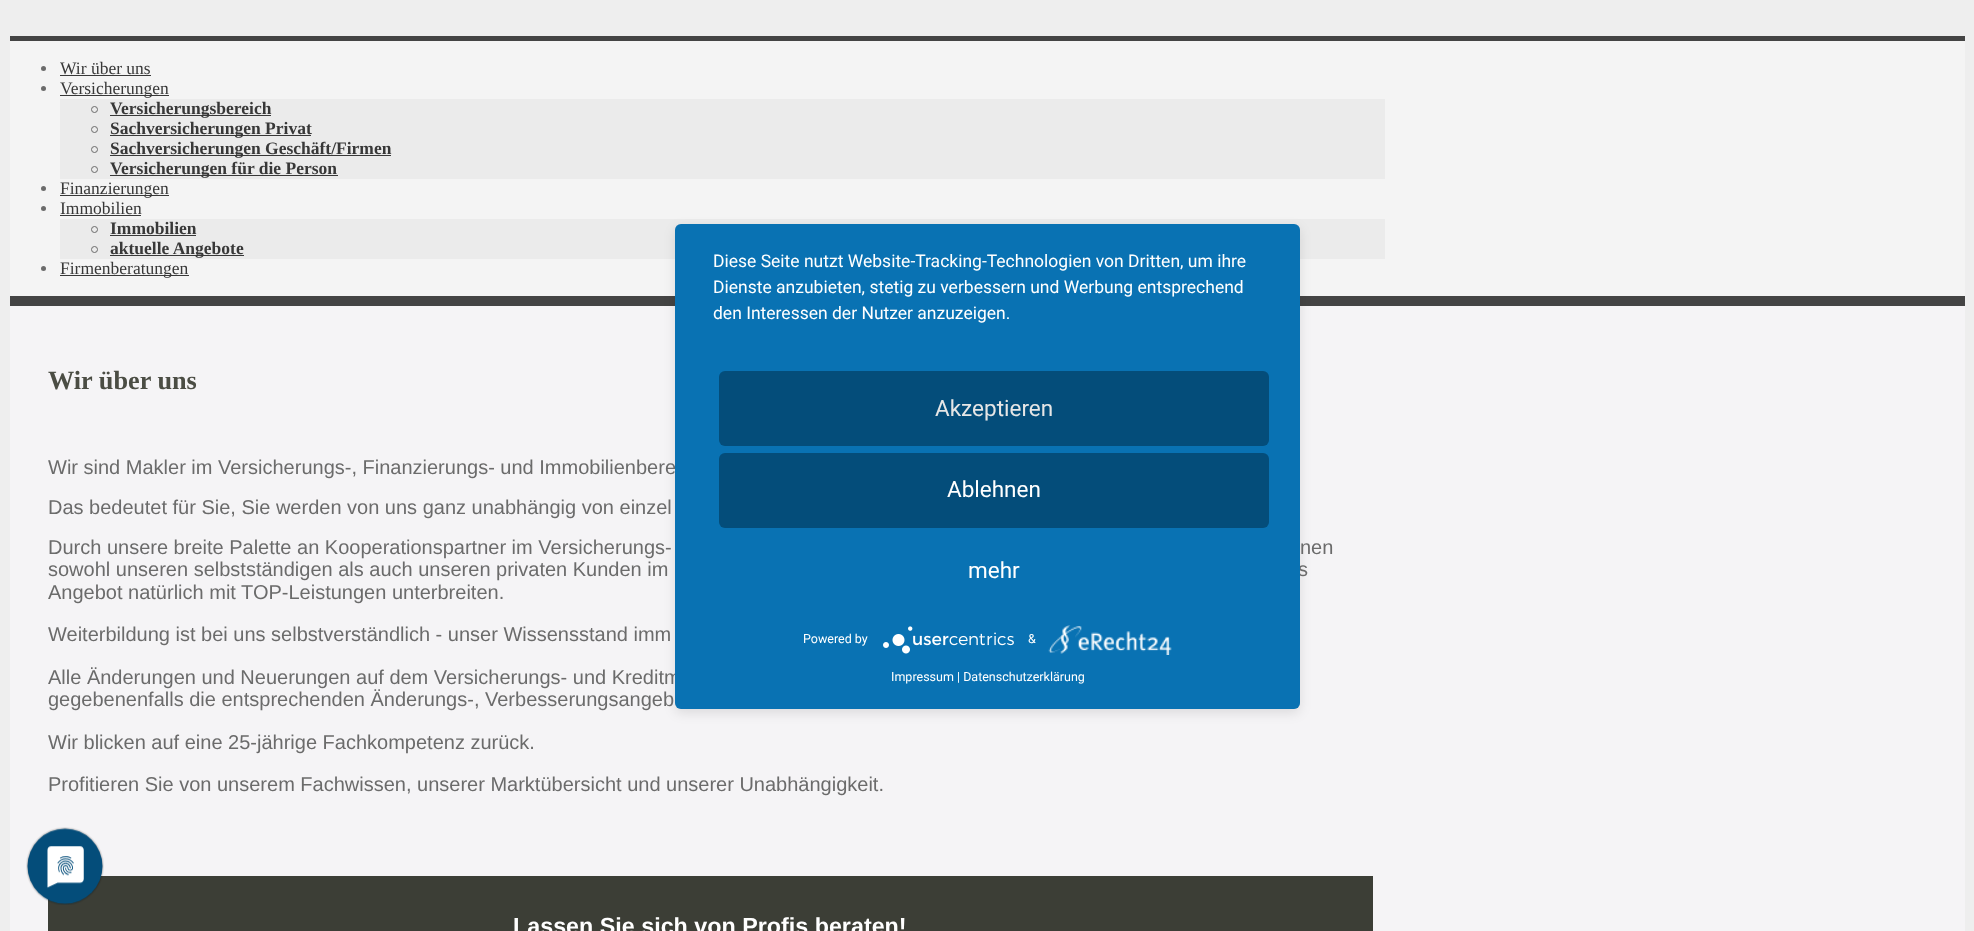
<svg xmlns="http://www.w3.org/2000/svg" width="1974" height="931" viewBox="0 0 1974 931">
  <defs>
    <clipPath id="clip1"><rect x="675" y="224" width="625" height="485" rx="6"/></clipPath>
  </defs>
  <rect width="100%" height="100%" fill="#eee"/>
  <path d="M10 41h1955v255H10z" fill="#f4f4f4"/>
  <path d="M10 36h1955v5H10z" fill="#444"/>
  <path d="M10 296h1955v10H10z" fill="#444"/>
  <circle cx="43.5" cy="68.5" r="2.5" fill="#6b6b6b"/>
  <path d="M60 75h91v1H60z" fill="#383838"/>
  <circle cx="43.5" cy="88.5" r="2.5" fill="#6b6b6b"/>
  <path d="M60 95h109v1H60z" fill="#383838"/>
  <path d="M60 99h1325v80H60z" fill="#ebebeb"/>
  <circle cx="94.5" cy="109.5" r="3" fill="none" stroke="#6b6b6b"/>
  <path d="M110 115h161v1H110z" fill="#383838"/>
  <circle cx="94.5" cy="129.5" r="3" fill="none" stroke="#6b6b6b"/>
  <path d="M110 135h201v1H110z" fill="#383838"/>
  <circle cx="94.5" cy="149.5" r="3" fill="none" stroke="#6b6b6b"/>
  <path d="M110 155h281v1H110z" fill="#383838"/>
  <circle cx="94.5" cy="169.5" r="3" fill="none" stroke="#6b6b6b"/>
  <path d="M110 175h228v1H110z" fill="#383838"/>
  <circle cx="43.5" cy="188.5" r="2.5" fill="#6b6b6b"/>
  <path d="M60 195h109v1H60z" fill="#383838"/>
  <circle cx="43.5" cy="208.5" r="2.5" fill="#6b6b6b"/>
  <path d="M60 215h81v1H60z" fill="#383838"/>
  <path d="M60 219h1325v40H60z" fill="#ebebeb"/>
  <circle cx="94.5" cy="229.5" r="3" fill="none" stroke="#6b6b6b"/>
  <path d="M110 235h86v1H110z" fill="#383838"/>
  <circle cx="94.5" cy="249.5" r="3" fill="none" stroke="#6b6b6b"/>
  <path d="M110 255h134v1H110z" fill="#383838"/>
  <circle cx="43.5" cy="268.5" r="2.5" fill="#6b6b6b"/>
  <path d="M60 275h129v1H60z" fill="#383838"/>
  <path d="M10 306h1955v625H10z" fill="#f5f4f6"/>
  <path d="M48 876h1325v55H48z" fill="#3c3e36"/>
  <rect x="675" y="228" width="625" height="485" rx="6" fill="#0000001a" filter="blur(6px)"/>
  <g clip-path="url(#clip1)">
    <path d="M675 231h625v485H675z" fill="#0000004d" filter="blur(22.5px)"/>
  </g>
  <image x="26" y="827" width="78" height="78" href="img/3.png"/>
  <g font-family="Liberation Serif" font-size="17.5" fill="#383838">
    <text x="60" y="74">Wir über uns</text>
    <text x="60" y="94">Versicherungen</text>
  </g>
  <g font-family="Liberation Serif" font-size="17.5" font-weight="bold" fill="#383838">
    <text x="110" y="114">Versicherungsbereich</text>
    <text x="110" y="134">Sachversicherungen Privat</text>
    <text x="110" y="154">Sachversicherungen Geschäft/Firmen</text>
    <text x="110" y="174">Versicherungen für die Person</text>
  </g>
  <g font-family="Liberation Serif" font-size="17.5" fill="#383838">
    <text x="60" y="194">Finanzierungen</text>
    <text x="60" y="214">Immobilien</text>
  </g>
  <g font-family="Liberation Serif" font-size="17.5" font-weight="bold" fill="#383838">
    <text x="110" y="234">Immobilien</text>
    <text x="110" y="254">aktuelle Angebote</text>
  </g>
  <text x="60" y="274" font-family="Liberation Serif" font-size="17.5" fill="#383838">Firmenberatungen</text>
  <text x="48" y="389" font-family="Liberation Serif" font-size="26.25" font-weight="bold" fill="#4b4d44">Wir über uns</text>
  <g font-family="Liberation Sans" font-size="20" fill="#6b6b6b">
    <text x="48" y="474">Wir sind Makler im Versicherungs-, Finanzierungs- und Immobilienbere</text>
    <text x="48" y="514">Das bedeutet für Sie, Sie werden von uns ganz unabhängig von einzel</text>
    <text x="48" y="554">Durch unsere breite Palette an Kooperationspartner im Versicherungs-</text>
    <text x="1300" y="554">nen</text>
    <text x="48" y="576">sowohl unseren selbstständigen als auch unseren privaten Kunden im</text>
    <text x="1298" y="576">s</text>
    <text x="48" y="599">Angebot natürlich mit TOP-Leistungen unterbreiten.</text>
    <text x="48" y="641">Weiterbildung ist bei uns selbstverständlich - unser Wissensstand imm</text>
    <text x="48" y="684">Alle Änderungen und Neuerungen auf dem Versicherungs- und Kreditm</text>
    <text x="48" y="706">gegebenenfalls die entsprechenden Änderungs-, Verbesserungsangeb</text>
    <text x="48" y="749">Wir blicken auf eine 25-jährige Fachkompetenz zurück.</text>
    <text x="48" y="791">Profitieren Sie von unserem Fachwissen, unserer Marktübersicht und unserer Unabhängigkeit.</text>
  </g>
  <text x="513" y="934" font-family="Liberation Sans" font-size="23.3" font-weight="bold" fill="#fff">Lassen Sie sich von Profis beraten!</text>
  <rect x="675" y="224" width="625" height="485" rx="6" fill="#0972b3"/>
  <g font-family="Roboto" font-size="17.5" fill="#fff">
    <text x="713" y="267">Diese Seite nutzt Website-Tracking-Technologien von Dritten, um ihre</text>
    <text x="713" y="293">Dienste anzubieten, stetig zu verbessern und Werbung entsprechend</text>
    <text x="713" y="319">den Interessen der Nutzer anzuzeigen.</text>
  </g>
  <rect x="719" y="371" width="550" height="75" rx="6" fill="#044d7a"/>
  <text x="935" y="416" font-family="Roboto" font-size="22.5" fill="#e6e6e6">Akzeptieren</text>
  <rect x="719" y="453" width="550" height="75" rx="6" fill="#044d7a"/>
  <g font-family="Roboto" font-size="22.5" fill="#fff">
    <text x="947" y="497">Ablehnen</text>
    <text x="968" y="578">mehr</text>
  </g>
  <text x="803" y="643" font-family="Roboto" font-size="12.5" fill="#fff">Powered by</text>
  <image x="883" y="626" width="131" height="28" href="img/1.png"/>
  <text x="1028" y="643" font-family="Roboto" font-size="12.5" fill="#fff">&amp;</text>
  <image x="1048" y="625" width="124" height="30" href="img/2.png"/>
  <text x="891" y="681" font-family="Roboto" font-size="12.5" fill="#fff">Impressum | Datenschutzerklärung</text>
</svg>
